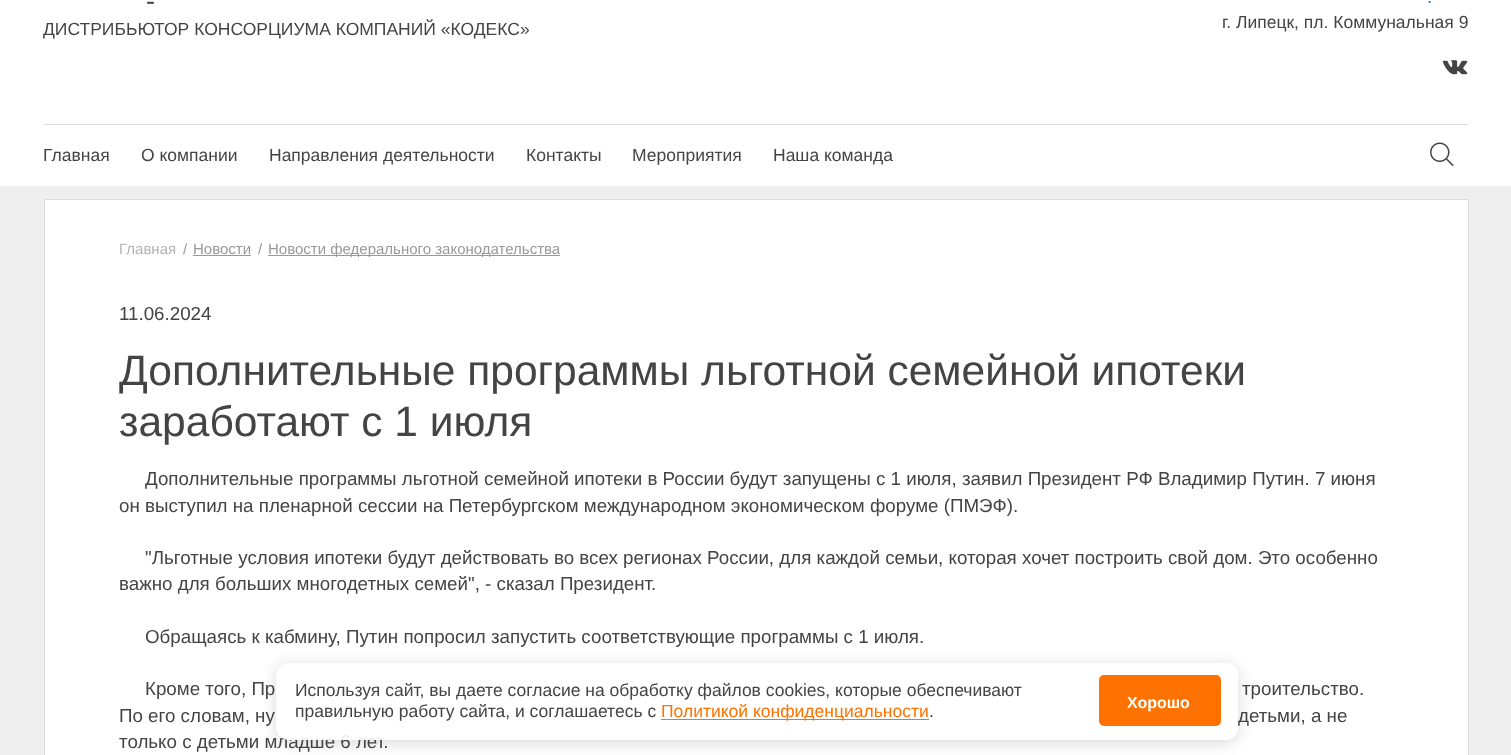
<svg xmlns="http://www.w3.org/2000/svg" width="1511" height="755" viewBox="0 0 1511 755">
  <defs>
    <clipPath id="clip1"><path d="M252 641H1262V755H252ZM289 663H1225C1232 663 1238 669 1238 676V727C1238 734 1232 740 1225 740H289C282 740 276 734 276 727V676C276 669 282 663 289 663Z" clip-rule="evenodd"/></clipPath>
  </defs>
  <rect width="100%" height="100%" fill="#efefef"/>
  <path d="M0 0h1511v186H0z" fill="#fff"/>
  <image x="1443" y="60" width="25" height="15" href="img/1.png"/>
  <path d="M44 124h1425v1H44z" fill="#ddd"/>
  <image x="1430" y="142" width="24" height="25" href="img/2.png"/>
  <path d="M44.5 199.5h1424v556H44.5z" fill="#fff" stroke="#ddd"/>
  <path d="M193 255h58v1H193z" fill="#999"/>
  <path d="M268 255h292v1H268z" fill="#999"/>
  <g clip-path="url(#clip1)">
    <rect x="276" y="665" width="962" height="78" rx="13" fill="#00000026" filter="blur(7.5px)"/>
  </g>
  <text x="146" y="10" font-family="Liberation Sans" font-size="27" fill="#444">-</text>
  <text x="43" y="35" font-family="Liberation Sans" font-size="17.5" fill="#444">ДИСТРИБЬЮТОР КОНСОРЦИУМА КОМПАНИЙ «КОДЕКС»</text>
  <text x="1427" y="3" font-family="Liberation Sans" font-size="18.75" fill="#0086ee">.</text>
  <g font-family="Liberation Sans" font-size="17.5" fill="#444">
    <text x="1222" y="28">г. Липецк, пл. Коммунальная 9</text>
    <text x="43" y="161">Главная</text>
    <text x="141" y="161">О компании</text>
    <text x="269" y="161">Направления деятельности</text>
    <text x="526" y="161">Контакты</text>
    <text x="632" y="161">Мероприятия</text>
    <text x="773" y="161">Наша команда</text>
  </g>
  <text x="119" y="254" font-family="Liberation Sans" font-size="15" fill="#b3b3b3">Главная</text>
  <g font-family="Liberation Sans" font-size="15" fill="#999">
    <text x="183" y="254">/</text>
    <text x="193" y="254">Новости</text>
    <text x="258" y="254">/</text>
    <text x="268" y="254">Новости федерального законодательства</text>
  </g>
  <text x="119" y="320" font-family="Liberation Sans" font-size="18.75" fill="#444">11.06.2024</text>
  <g font-family="Liberation Sans" font-size="42.5" fill="#444">
    <text x="119" y="385">Дополнительные программы льготной семейной ипотеки</text>
    <text x="119" y="436">заработают с 1 июля</text>
  </g>
  <g font-family="Liberation Sans" font-size="18.75" fill="#444">
    <text x="145" y="485">Дополнительные программы льготной семейной ипотеки в России будут запущены с 1 июля, заявил Президент РФ Владимир Путин. 7 июня</text>
    <text x="119" y="512">он выступил на пленарной сессии на Петербургском международном экономическом форуме (ПМЭФ).</text>
    <text x="145" y="564">"Льготные условия ипотеки будут действовать во всех регионах России, для каждой семьи, которая хочет построить свой дом. Это особенно</text>
    <text x="119" y="590">важно для больших многодетных семей", - сказал Президент.</text>
    <text x="145" y="643">Обращаясь к кабмину, Путин попросил запустить соответствующие программы с 1 июля.</text>
    <text x="145" y="695">Кроме того, Пр</text>
    <text x="1242" y="695">троительство.</text>
    <text x="119" y="722">По его словам, ну</text>
    <text x="1238" y="722">детьми, а не</text>
    <text x="119" y="748">только с детьми младше 6 лет.</text>
  </g>
  <rect x="276" y="663" width="962" height="77" rx="13" fill="#ffffffe6"/>
  <g font-family="Liberation Sans" font-size="17.5" fill="#444">
    <text x="295" y="696">Используя сайт, вы даете согласие на обработку файлов сооkiеs, которые обеспечивают</text>
    <text x="295" y="717">правильную работу сайта, и соглашаетесь с</text>
  </g>
  <path d="M661 719h268v1H661z" fill="#ff7200"/>
  <text x="661" y="717" font-family="Liberation Sans" font-size="17.5" fill="#ff7200">Политикой конфиденциальности</text>
  <text x="929" y="717" font-family="Liberation Sans" font-size="17.5" fill="#444">.</text>
  <rect x="1099" y="675" width="122" height="51" rx="5" fill="#ff7200"/>
  <text x="1127" y="708" font-family="Liberation Sans" font-size="16" font-weight="bold" fill="#fff">Хорошо</text>
</svg>
